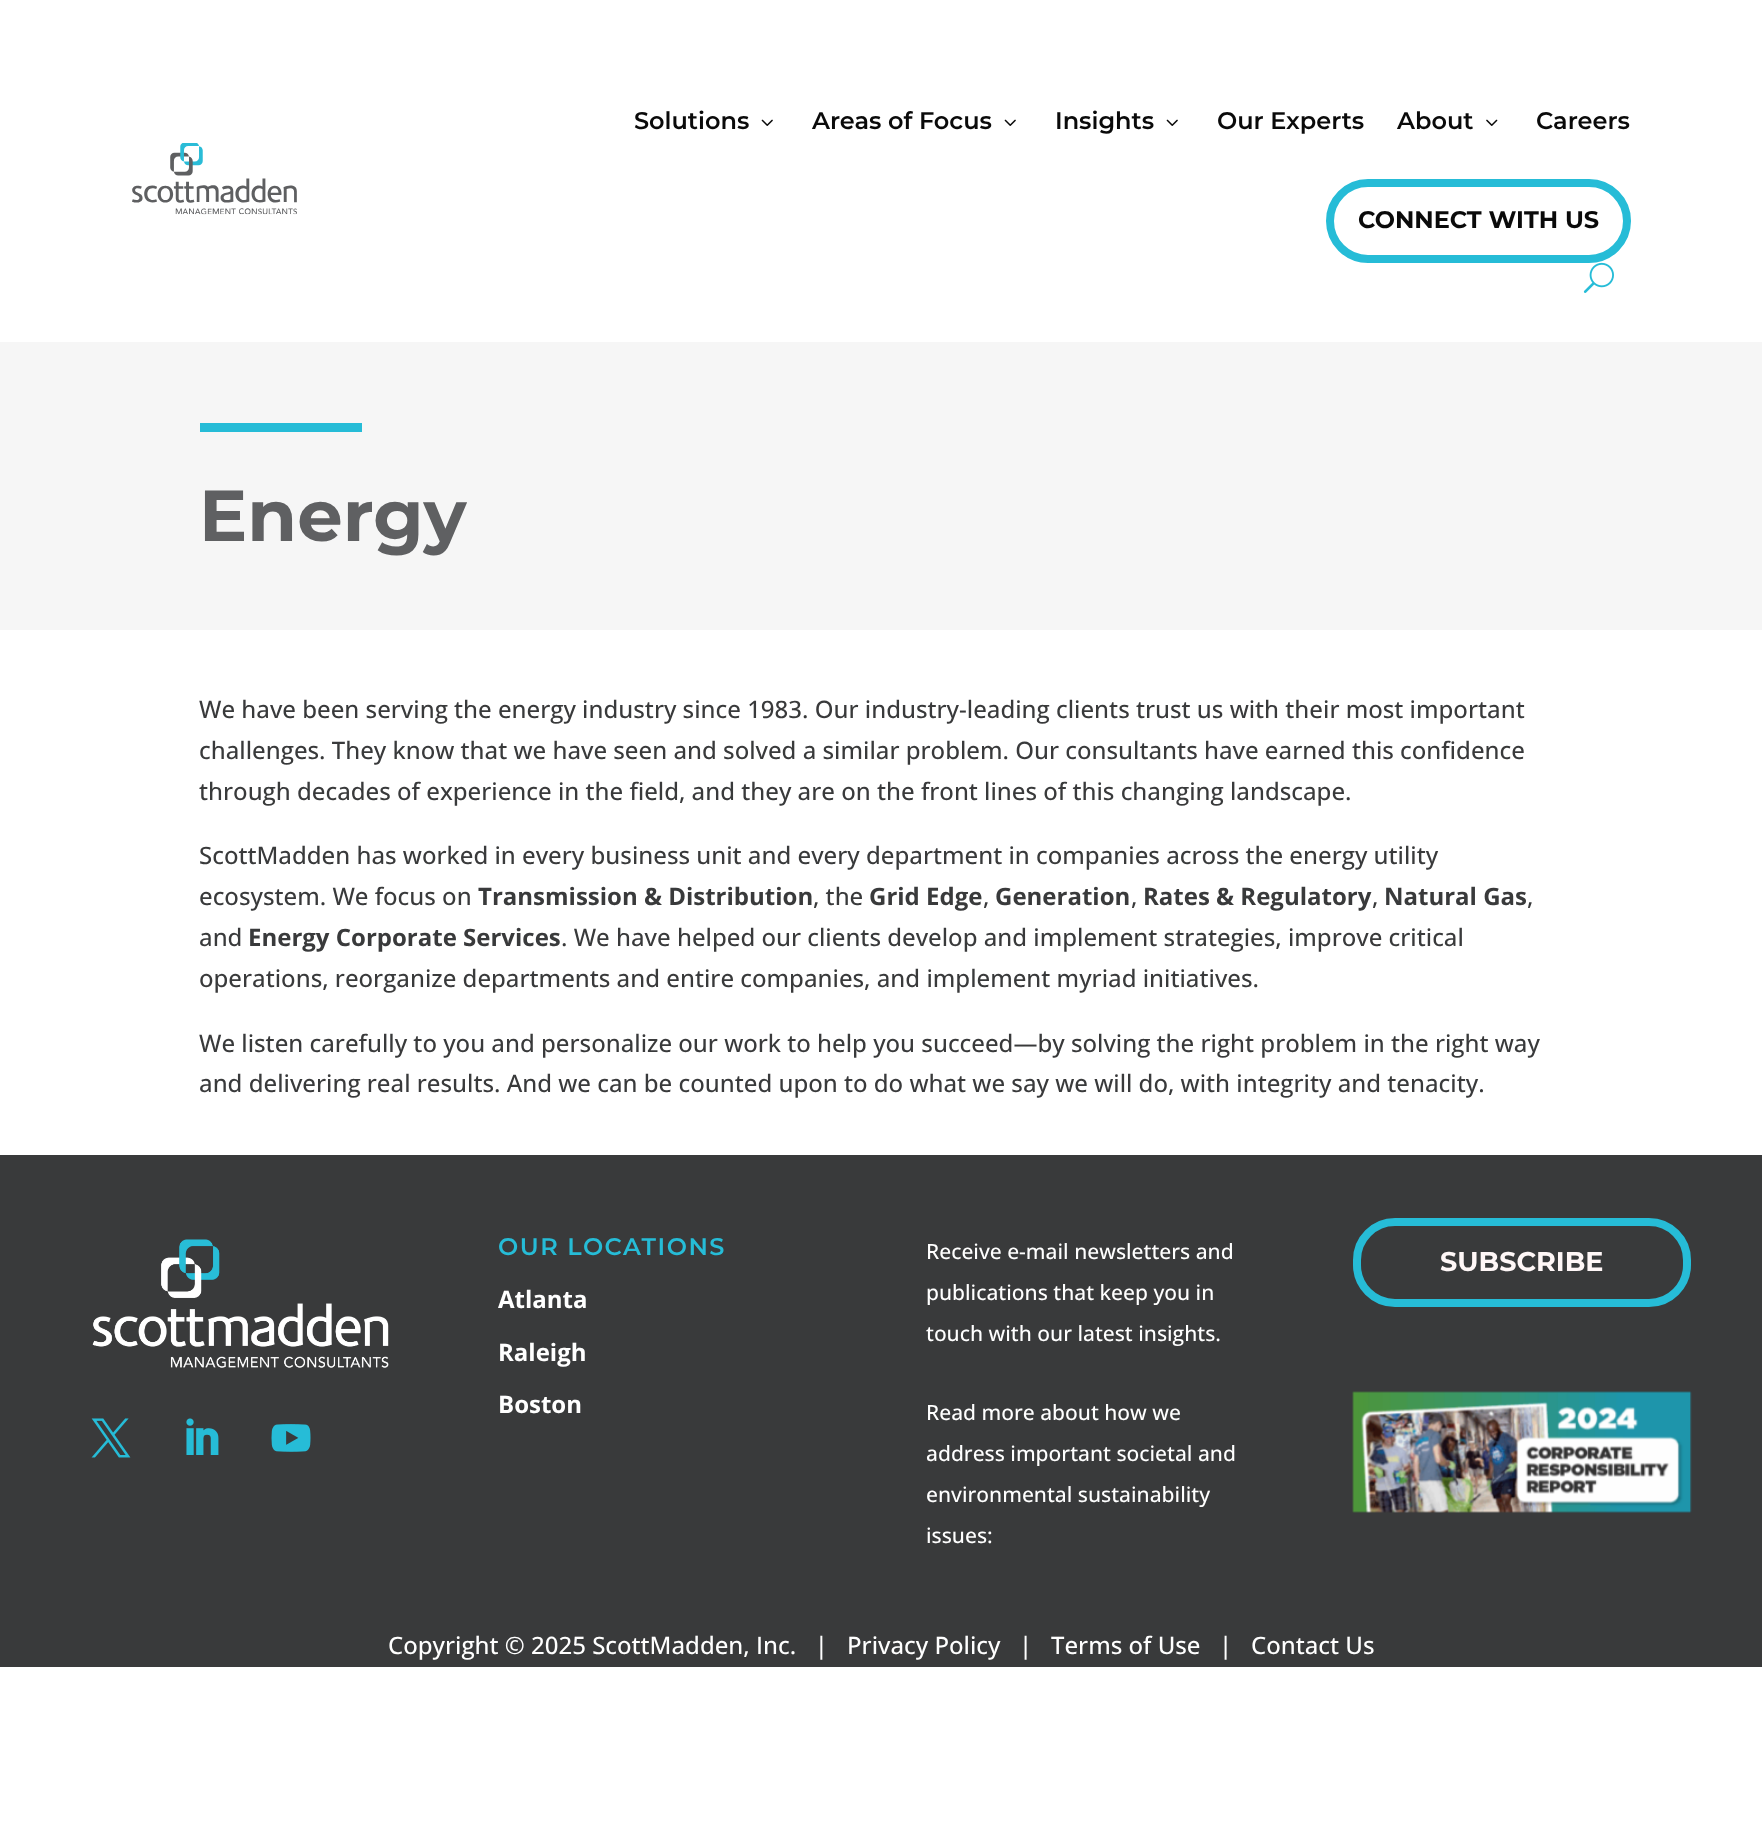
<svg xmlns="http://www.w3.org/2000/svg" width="1762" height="1834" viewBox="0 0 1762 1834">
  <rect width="100%" height="100%" fill="#fff"/>
  <image x="132" y="143" width="165" height="72" href="img/1.png"/>
  <image x="761" y="119" width="12" height="7" href="img/2.png"/>
  <image x="1004" y="119" width="12" height="7" href="img/2.png"/>
  <image x="1166" y="119" width="12" height="7" href="img/2.png"/>
  <image x="1486" y="119" width="12" height="7" href="img/3.png"/>
  <image x="1583" y="262" width="31" height="31" href="img/4.png"/>
  <rect x="1330" y="183" width="297" height="76" rx="38" fill="none" stroke="#26bcd7" stroke-width="8"/>
  <path d="M0 342h1762v288H0z" fill="#f6f6f6"/>
  <path d="M200 423h162v9H200z" fill="#26bcd7"/>
  <path d="M0 1155h1762v512H0z" fill="#393a3b"/>
  <image x="92" y="1239" width="297" height="129" href="img/5.png"/>
  <image x="91" y="1418" width="40" height="40" href="img/6.png"/>
  <image x="186" y="1418" width="33" height="37" href="img/7.png"/>
  <image x="271" y="1424" width="40" height="28" href="img/8.png"/>
  <rect x="1357" y="1222" width="330" height="81" rx="38" fill="none" stroke="#26bcd7" stroke-width="8"/>
  <image x="1352" y="1391" width="340" height="122" href="img/9.png"/>
  <g font-family="Montserrat" font-size="24" font-weight="600" fill="#0a0a0a">
    <text x="634" y="129">Solutions</text>
    <text x="812" y="129">Areas of Focus</text>
    <text x="1055" y="129">Insights</text>
    <text x="1217" y="129">Our Experts</text>
    <text x="1397" y="129">About</text>
    <text x="1536" y="129">Careers</text>
  </g>
  <text x="1358" y="228" font-family="Montserrat" font-size="24" font-weight="bold" fill="#0a0a0a">CONNECT WITH US</text>
  <text x="199" y="541" font-family="Montserrat" font-size="72" font-weight="bold" fill="#5f6062">Energy</text>
  <g font-family="Open Sans" font-size="24" font-weight="500" fill="#393a3b">
    <text x="199" y="718">We have been serving the energy industry since 1983. Our industry-leading clients trust us with their most important</text>
    <text x="199" y="759">challenges. They know that we have seen and solved a similar problem. Our consultants have earned this confidence</text>
    <text x="199" y="800">through decades of experience in the field, and they are on the front lines of this changing landscape.</text>
    <text x="199" y="864">ScottMadden has worked in every business unit and every department in companies across the energy utility</text>
    <text x="199" y="905">ecosystem. We focus on</text>
  </g>
  <text x="478" y="905" font-family="Open Sans" font-size="24" font-weight="bold" fill="#393a3b">Transmission &amp; Distribution</text>
  <text x="813" y="905" font-family="Open Sans" font-size="24" font-weight="500" fill="#393a3b">, the</text>
  <text x="869" y="905" font-family="Open Sans" font-size="24" font-weight="bold" fill="#393a3b">Grid Edge</text>
  <text x="983" y="905" font-family="Open Sans" font-size="24" font-weight="500" fill="#393a3b">,</text>
  <text x="995" y="905" font-family="Open Sans" font-size="24" font-weight="bold" fill="#393a3b">Generation</text>
  <text x="1131" y="905" font-family="Open Sans" font-size="24" font-weight="500" fill="#393a3b">,</text>
  <text x="1143" y="905" font-family="Open Sans" font-size="24" font-weight="bold" fill="#393a3b">Rates &amp; Regulatory</text>
  <text x="1372" y="905" font-family="Open Sans" font-size="24" font-weight="500" fill="#393a3b">,</text>
  <text x="1384" y="905" font-family="Open Sans" font-size="24" font-weight="bold" fill="#393a3b">Natural Gas</text>
  <g font-family="Open Sans" font-size="24" font-weight="500" fill="#393a3b">
    <text x="1527" y="905">,</text>
    <text x="199" y="946">and</text>
  </g>
  <text x="248" y="946" font-family="Open Sans" font-size="24" font-weight="bold" fill="#393a3b">Energy Corporate Services</text>
  <g font-family="Open Sans" font-size="24" font-weight="500" fill="#393a3b">
    <text x="561" y="946">. We have helped our clients develop and implement strategies, improve critical</text>
    <text x="199" y="987">operations, reorganize departments and entire companies, and implement myriad initiatives.</text>
    <text x="199" y="1052">We listen carefully to you and personalize our work to help you succeed—by solving the right problem in the right way</text>
    <text x="199" y="1092">and delivering real results. And we can be counted upon to do what we say we will do, with integrity and tenacity.</text>
  </g>
  <text x="498" y="1255" font-family="Montserrat" font-size="24" font-weight="600" letter-spacing="1.5" fill="#26bcd7">OUR LOCATIONS</text>
  <g font-family="Open Sans" font-size="24" font-weight="bold" fill="#fff">
    <text x="498" y="1308">Atlanta</text>
    <text x="498" y="1361">Raleigh</text>
    <text x="498" y="1413">Boston</text>
  </g>
  <g font-family="Open Sans" font-size="21" font-weight="500" fill="#fff">
    <text x="926" y="1259">Receive e-mail newsletters and</text>
    <text x="926" y="1300">publications that keep you in</text>
    <text x="926" y="1341">touch with our latest insights.</text>
  </g>
  <text x="1440" y="1271" font-family="Montserrat" font-size="27" font-weight="bold" fill="#fff7f7">SUBSCRIBE</text>
  <g font-family="Open Sans" font-size="21" font-weight="500" fill="#fff">
    <text x="926" y="1420">Read more about how we</text>
    <text x="926" y="1461">address important societal and</text>
    <text x="926" y="1502">environmental sustainability</text>
    <text x="926" y="1543">issues:</text>
  </g>
  <g font-family="Open Sans" font-size="24" font-weight="500" fill="#fff">
    <text x="388" y="1654" xml:space="preserve">Copyright © 2025 ScottMadden, Inc.   |</text>
    <text x="847" y="1654">Privacy Policy</text>
    <text x="1019" y="1654">|</text>
    <text x="1051" y="1654">Terms of Use</text>
    <text x="1219" y="1654">|</text>
    <text x="1251" y="1654">Contact Us</text>
  </g>
</svg>
